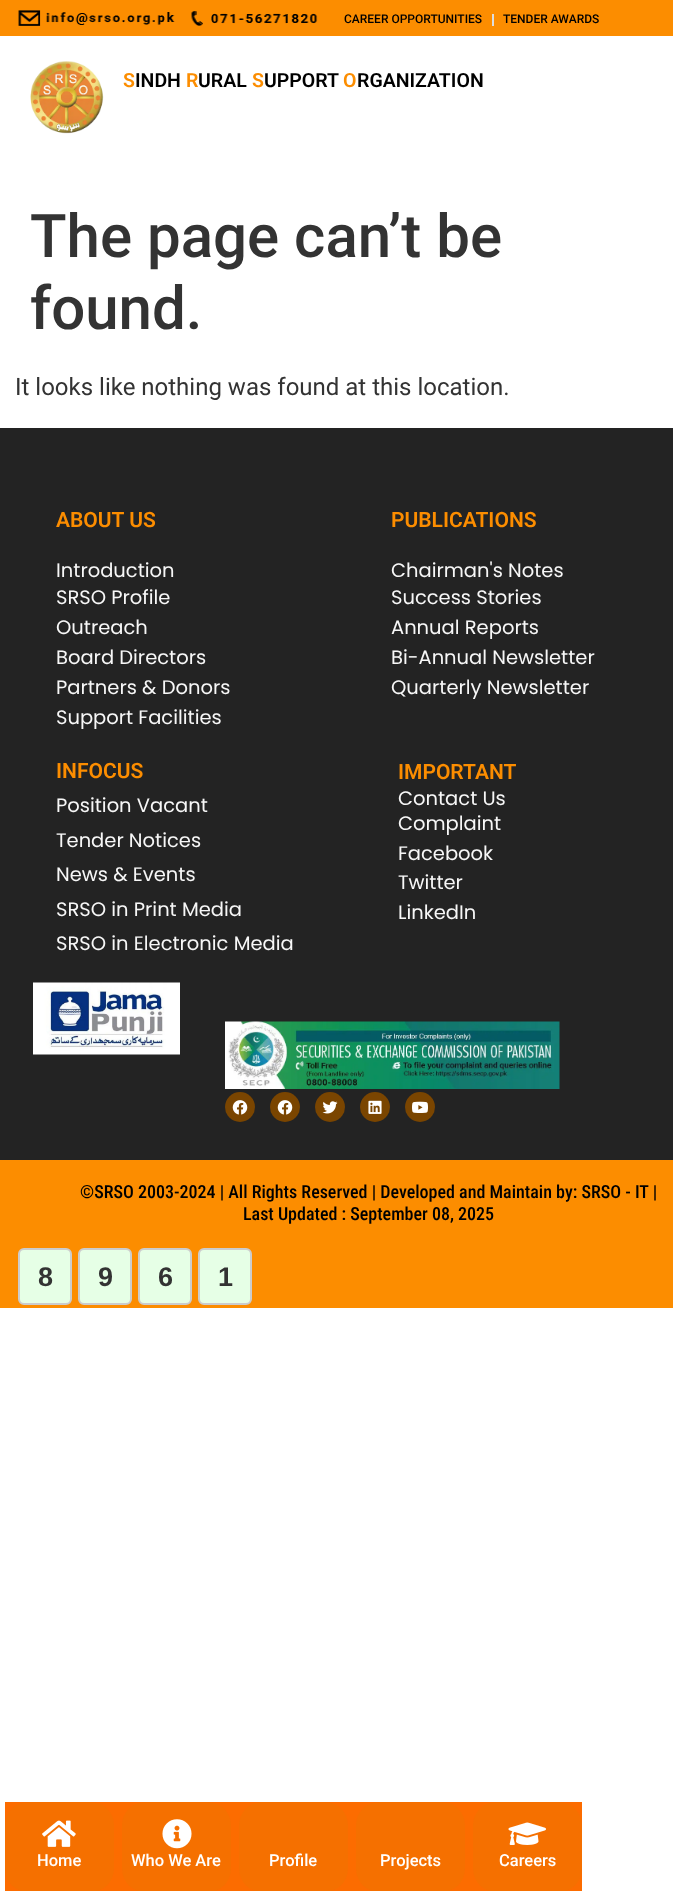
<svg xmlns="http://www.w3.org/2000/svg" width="673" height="1891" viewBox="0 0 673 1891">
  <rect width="100%" height="100%" fill="#fff"/>
  <path d="M0 0h673v36H0z" fill="#fc8d00"/>
  <image x="18" y="10" width="300" height="16" href="img/1.png"/>
  <path d="M492 14h2v12H492z" fill="#ddd"/>
  <image x="30" y="61" width="74" height="73" href="img/2.png"/>
  <path d="M5 1802h577v89H5z" fill="#fc6c00"/>
  <rect x="5" y="1802" width="109" height="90" rx="23" fill="#f57000"/>
  <image x="42" y="1820" width="34" height="27" href="img/3.png"/>
  <rect x="122" y="1802" width="109" height="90" rx="23" fill="#f57000"/>
  <image x="162" y="1819" width="30" height="30" href="img/4.png"/>
  <rect x="239" y="1802" width="109" height="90" rx="23" fill="#f57000"/>
  <rect x="356" y="1802" width="109" height="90" rx="23" fill="#f57000"/>
  <rect x="473" y="1802" width="109" height="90" rx="23" fill="#f57000"/>
  <image x="508" y="1822" width="38" height="23" href="img/5.png"/>
  <path d="M0 428h673v732H0z" fill="#232323"/>
  <image x="33" y="982" width="147" height="73" href="img/6.png"/>
  <image x="225" y="1021" width="335" height="68" href="img/7.png"/>
  <circle cx="240" cy="1107" r="15" fill="#7a4500"/>
  <image x="232" y="1100" width="16" height="15" href="img/8.png"/>
  <circle cx="285" cy="1107" r="15" fill="#7a4500"/>
  <image x="277" y="1100" width="16" height="15" href="img/8.png"/>
  <circle cx="330" cy="1107" r="15" fill="#7a4500"/>
  <image x="322" y="1101" width="16" height="13" href="img/9.png"/>
  <circle cx="375" cy="1107" r="15" fill="#7a4500"/>
  <image x="368" y="1100" width="14" height="14" href="img/10.png"/>
  <circle cx="420" cy="1107" r="15" fill="#7a4500"/>
  <image x="412" y="1101" width="16" height="12" href="img/11.png"/>
  <path d="M0 1160h673v148H0z" fill="#fc8d00"/>
  <rect x="19" y="1249" width="52" height="55" rx="5" fill="#e6ffe6" stroke="#ccc" stroke-width="2"/>
  <rect x="79" y="1249" width="52" height="55" rx="5" fill="#e6ffe6" stroke="#ccc" stroke-width="2"/>
  <rect x="139" y="1249" width="52" height="55" rx="5" fill="#e6ffe6" stroke="#ccc" stroke-width="2"/>
  <rect x="199" y="1249" width="52" height="55" rx="5" fill="#e6ffe6" stroke="#ccc" stroke-width="2"/>
  <g font-family="Roboto" font-size="12" font-weight="500" fill="#000">
    <text x="344" y="23">CAREER OPPORTUNITIES</text>
    <text x="503" y="23">TENDER AWARDS</text>
  </g>
  <text x="123" y="87" font-family="Roboto" font-size="19.5" font-weight="600" fill="#fc8d00">S</text>
  <text x="135" y="87" font-family="Roboto" font-size="19.5" font-weight="600" fill="#000">INDH</text>
  <text x="186" y="87" font-family="Roboto" font-size="19.5" font-weight="600" fill="#fc8d00">R</text>
  <text x="198" y="87" font-family="Roboto" font-size="19.5" font-weight="600" fill="#000">URAL</text>
  <text x="252" y="87" font-family="Roboto" font-size="19.5" font-weight="600" fill="#fc8d00">S</text>
  <text x="264" y="87" font-family="Roboto" font-size="19.5" font-weight="600" fill="#000">UPPORT</text>
  <text x="343" y="87" font-family="Roboto" font-size="19.5" font-weight="600" fill="#fc8d00">O</text>
  <text x="357" y="87" font-family="Roboto" font-size="19.5" font-weight="600" fill="#000">RGANIZATION</text>
  <g font-family="Roboto" font-size="16.5" font-weight="500" fill="#fff">
    <text x="37" y="1866">Home</text>
    <text x="131" y="1866">Who We Are</text>
    <text x="269" y="1866">Profile</text>
    <text x="380" y="1866">Projects</text>
    <text x="499" y="1866">Careers</text>
  </g>
  <g font-family="Roboto" font-size="60" font-weight="500" fill="#333">
    <text x="30" y="257">The page can’t be</text>
    <text x="30" y="329">found.</text>
  </g>
  <text x="15" y="395" font-family="Roboto" font-size="24" fill="#333">It looks like nothing was found at this location.</text>
  <text x="56" y="527" font-family="Roboto" font-size="21" font-weight="600" fill="#fc8d00">ABOUT US</text>
  <g font-family="Poppins" font-size="19.5" fill="#f7f7f7">
    <text x="56" y="577">Introduction</text>
    <text x="56" y="604">SRSO Profile</text>
    <text x="56" y="634">Outreach</text>
    <text x="56" y="664">Board Directors</text>
    <text x="56" y="694">Partners &amp; Donors</text>
    <text x="56" y="724">Support Facilities</text>
  </g>
  <text x="391" y="527" font-family="Roboto" font-size="21" font-weight="600" fill="#fc8d00">PUBLICATIONS</text>
  <g font-family="Poppins" font-size="19.5" fill="#f7f7f7">
    <text x="391" y="577">Chairman's Notes</text>
    <text x="391" y="604">Success Stories</text>
    <text x="391" y="634">Annual Reports</text>
    <text x="391" y="664">Bi-Annual Newsletter</text>
    <text x="391" y="694">Quarterly Newsletter</text>
  </g>
  <text x="56" y="778" font-family="Roboto" font-size="21" font-weight="600" fill="#fc8d00">INFOCUS</text>
  <g font-family="Poppins" font-size="19.5" fill="#f7f7f7">
    <text x="56" y="812">Position Vacant</text>
    <text x="56" y="847">Tender Notices</text>
    <text x="56" y="881">News &amp; Events</text>
    <text x="56" y="916">SRSO in Print Media</text>
    <text x="56" y="950">SRSO in Electronic Media</text>
  </g>
  <text x="398" y="779" font-family="Roboto" font-size="21" font-weight="600" fill="#fc8d00">IMPORTANT</text>
  <g font-family="Poppins" font-size="19.5" fill="#f7f7f7">
    <text x="398" y="805">Contact Us</text>
    <text x="398" y="830">Complaint</text>
    <text x="398" y="860">Facebook</text>
    <text x="398" y="889">Twitter</text>
    <text x="398" y="919">LinkedIn</text>
  </g>
  <g font-family="Roboto Condensed" font-size="18" font-weight="500" fill="#000">
    <text x="80" y="1198">©SRSO 2003-2024 | All Rights Reserved | Developed and Maintain by: SRSO - IT |</text>
    <text x="243" y="1220">Last Updated : September 08, 2025</text>
  </g>
  <g font-family="Liberation Sans" font-size="27" font-weight="bold" fill="#333">
    <text x="38" y="1286">8</text>
    <text x="98" y="1286">9</text>
    <text x="158" y="1286">6</text>
    <text x="218" y="1286">1</text>
  </g>
</svg>
